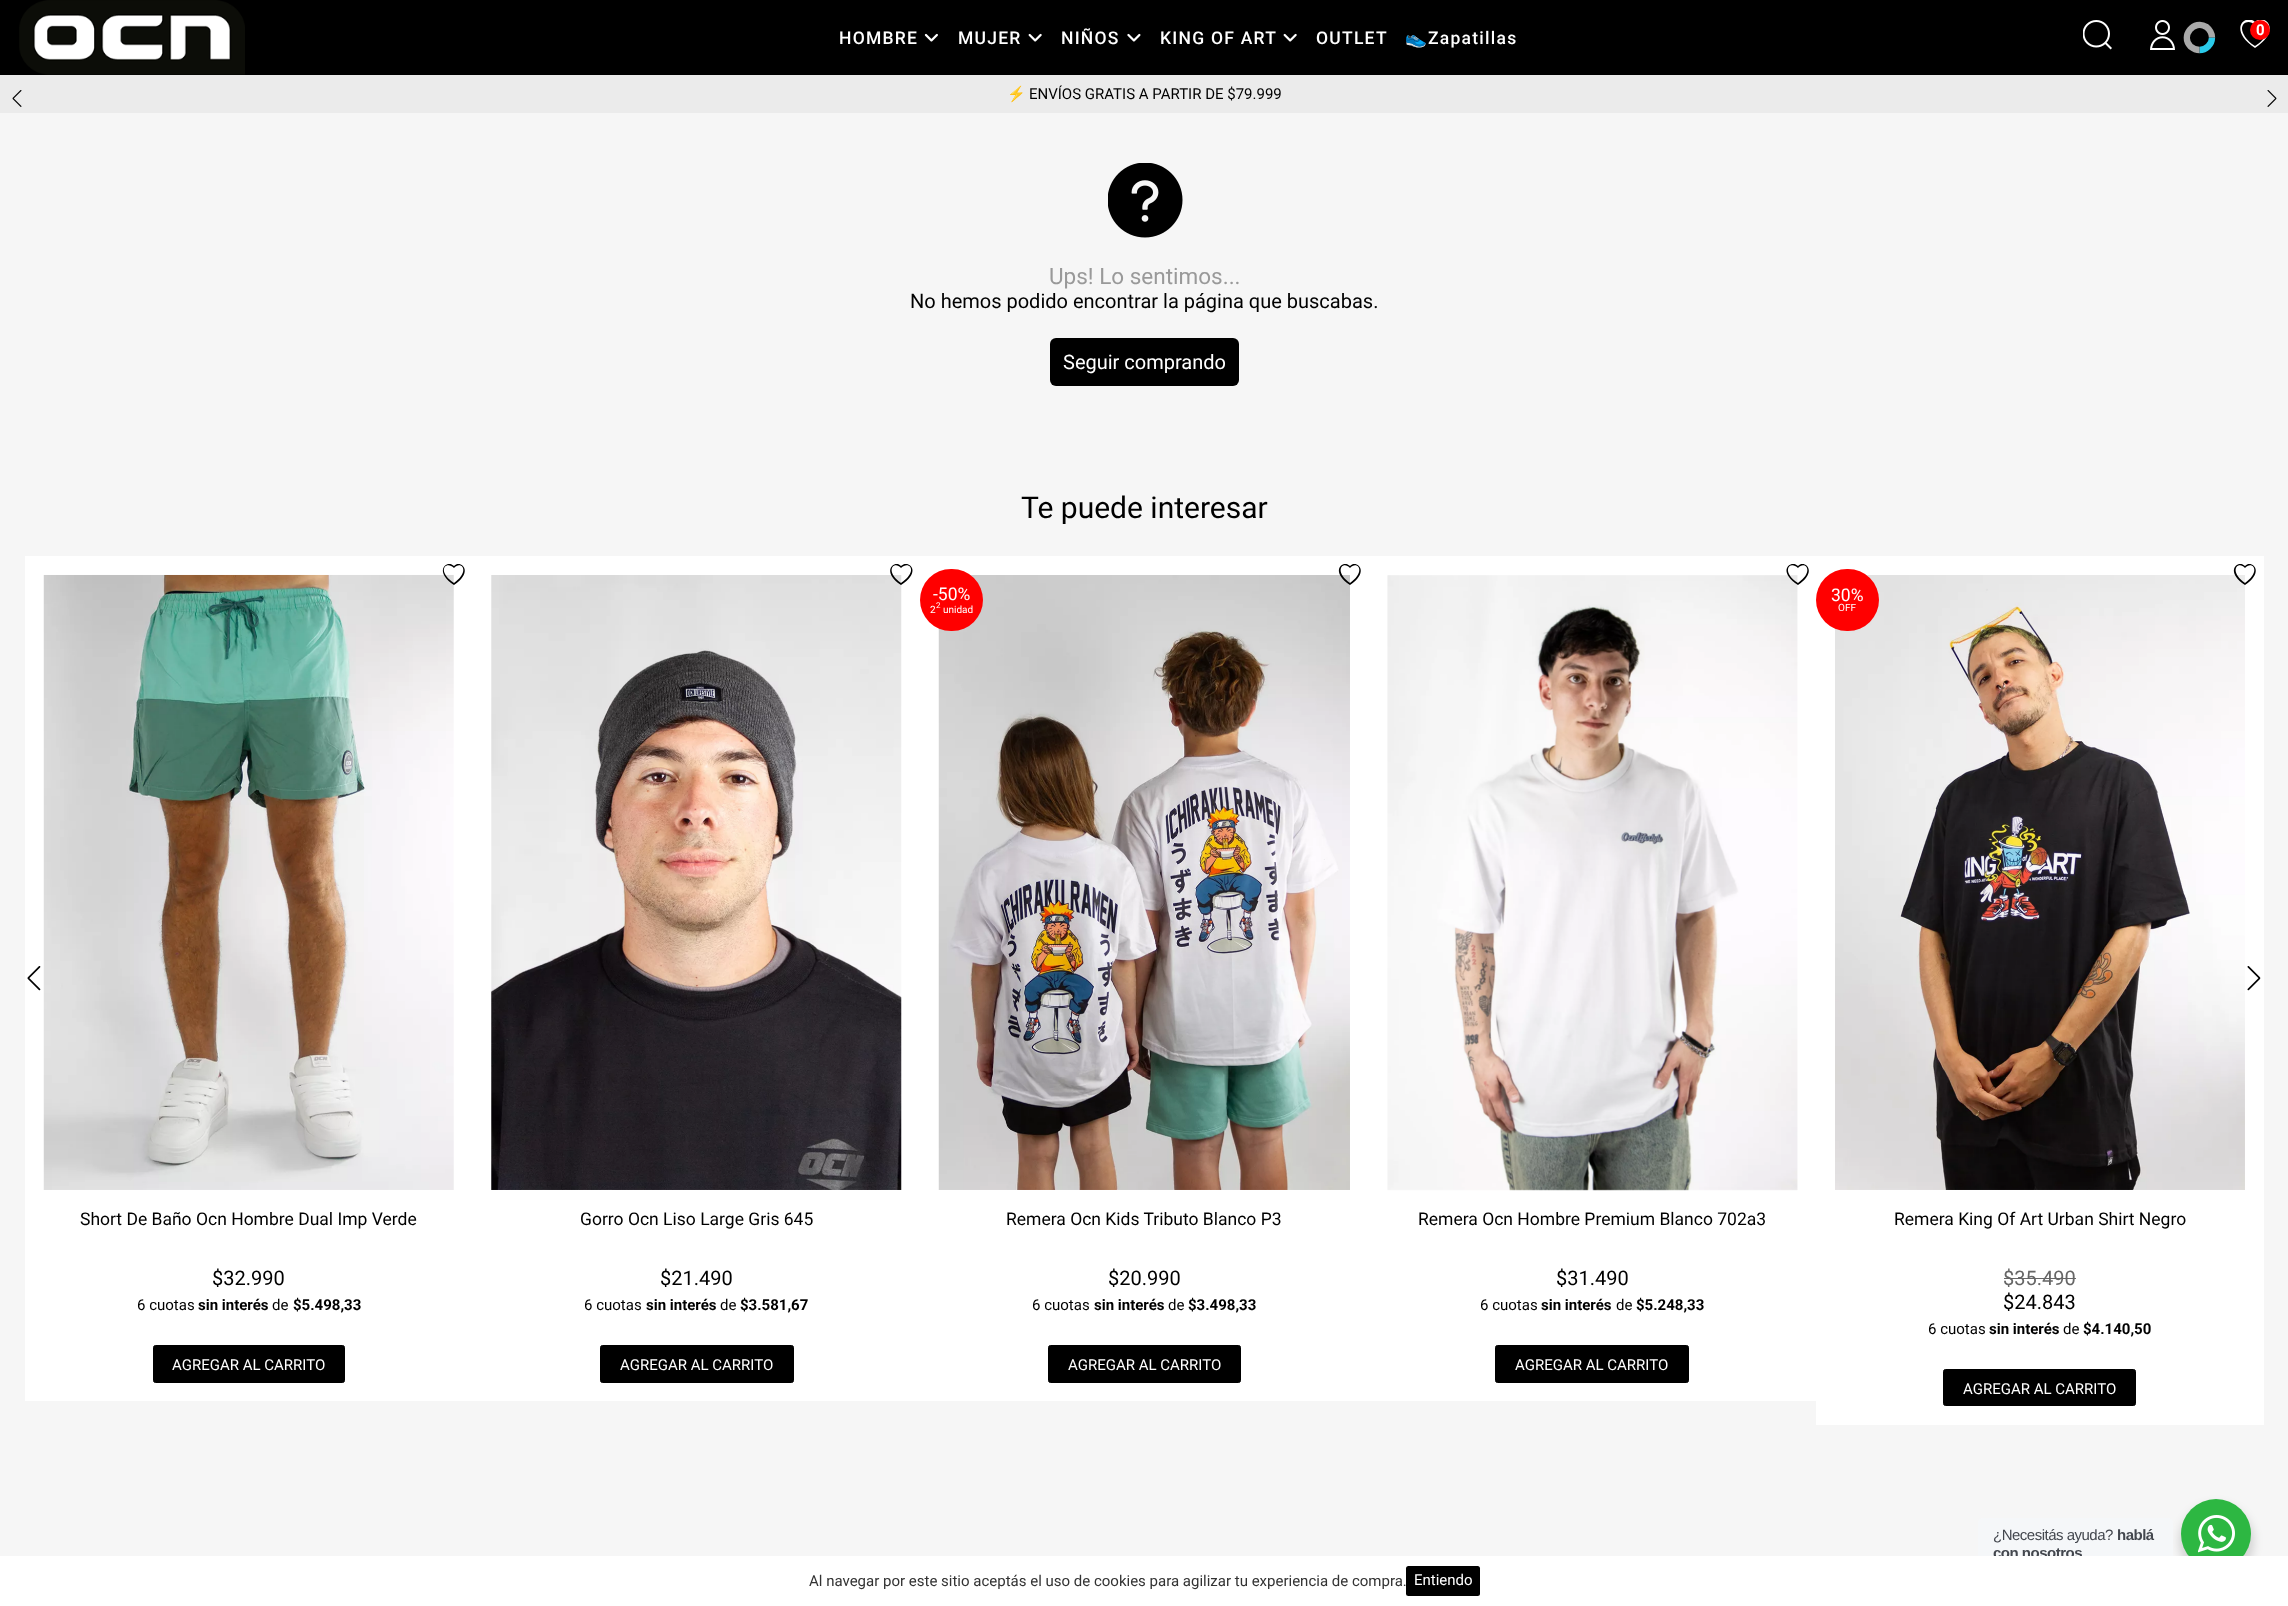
<svg xmlns="http://www.w3.org/2000/svg" width="2288" height="1606" viewBox="0 0 2288 1606">
  <defs>
    <clipPath id="clip1"><path d="M2240 20h30v30H2240z"/></clipPath>
  </defs>
  <rect width="100%" height="100%" fill="#f6f6f6"/>
  <path d="M0 0h2288v75H0z" fill="#000"/>
  <image x="19" y="0" width="226" height="75" href="img/1.png"/>
  <image x="924" y="33" width="14" height="9" href="img/2.png"/>
  <image x="1028" y="33" width="14" height="9" href="img/3.png"/>
  <image x="1127" y="33" width="14" height="9" href="img/4.png"/>
  <image x="1283" y="33" width="14" height="9" href="img/3.png"/>
  <image x="2083" y="20" width="29" height="30" href="img/5.png"/>
  <image x="2150" y="20" width="25" height="30" href="img/6.png"/>
  <path d="M2212 37.5C2212 44.5 2206 50 2199.5 50" fill="none" stroke="#2acaea" stroke-width="6.3"/>
  <path d="M2199.5 50C2196 50 2193 48.5 2190.5 46.5C2180 36 2194 19 2206.5 27C2209.5 29.5 2212 33.5 2212 37.5" fill="none" stroke="#a9a9a9" stroke-width="6.3"/>
  <g clip-path="url(#clip1)">
    <path d="M2255 25C2248 18 2239 24 2243 33C2245 38 2250 43 2255 46C2260 43 2265 38 2267 33C2271 24 2262 18 2255 25ZM2255 48C2227 29 2246 13 2255 22C2264 13 2283 29 2255 48Z" fill="#fff"/>
  </g>
  <circle cx="2260" cy="30" r="10" fill="#f00"/>
  <path d="M0 75h2288v38H0z" fill="#ebebeb"/>
  <image x="12" y="90" width="10" height="17" href="img/7.png"/>
  <image x="2267" y="90" width="10" height="17" href="img/8.png"/>
  <image x="1108" y="163" width="75" height="75" href="img/9.png"/>
  <rect x="1050" y="338" width="189" height="48" rx="6" fill="#000"/>
  <path d="M25 556h1791v845H25z" fill="#fff"/>
  <image x="27" y="966" width="14" height="25" href="img/10.png"/>
  <image x="43" y="574" width="411" height="616" href="img/11.png"/>
  <path d="M454 568C446 560 436 571 454 583C471 571 461 560 454 568ZM454 585C433 571 447 559 454 566C460 559 475 571 454 585Z" fill="#000"/>
  <rect x="153.5" y="1345.5" width="191" height="37" rx="2" fill="#000" stroke="#000"/>
  <image x="491" y="575" width="411" height="615" href="img/12.png"/>
  <path d="M901 568C894 560 884 571 901 583C919 571 909 560 901 568ZM901 585C880 571 895 559 901 566C908 559 923 571 901 585Z" fill="#000"/>
  <rect x="600.5" y="1345.5" width="193" height="37" rx="2" fill="#000" stroke="#000"/>
  <image x="938" y="575" width="412" height="615" href="img/13.png"/>
  <rect x="920" y="569" width="63" height="62" rx="31" fill="#f00"/>
  <rect x="1048.5" y="1345.5" width="192" height="37" rx="2" fill="#000" stroke="#000"/>
  <path d="M1350 568C1343 560 1333 571 1350 583C1367 571 1357 560 1350 568ZM1350 585C1329 571 1343 559 1350 566C1356 559 1371 571 1350 585Z" fill="#000"/>
  <image x="1387" y="575" width="411" height="616" href="img/14.png"/>
  <path d="M1798 568C1790 560 1780 571 1798 583C1815 571 1805 560 1798 568ZM1798 585C1776 571 1791 559 1798 566C1804 559 1819 571 1798 585Z" fill="#000"/>
  <rect x="1495.5" y="1345.5" width="193" height="37" rx="2" fill="#000" stroke="#000"/>
  <path d="M1816 556h448v869H1816z" fill="#fff"/>
  <image x="1835" y="575" width="410" height="615" href="img/15.png"/>
  <rect x="1816" y="569" width="63" height="62" rx="31" fill="#f00"/>
  <path d="M2004 1278h72v1H2004z" fill="#666"/>
  <rect x="1943.5" y="1369.5" width="192" height="36" rx="2" fill="#000" stroke="#000"/>
  <path d="M2245 568C2238 560 2228 571 2245 583C2262 571 2252 560 2245 568ZM2245 585C2224 571 2238 559 2245 566C2251 559 2266 571 2245 585Z" fill="#000"/>
  <image x="2247" y="966" width="14" height="25" href="img/16.png"/>
  <rect x="2179" y="1504" width="75" height="75" rx="37.5" fill="#00000024" filter="blur(5px)"/>
  <rect x="1978" y="1518" width="195" height="52" rx="5" fill="#f5f7f9"/>
  <circle cx="2216" cy="1534" r="35" fill="#2db742"/>
  <image x="2198" y="1515" width="37" height="38" href="img/17.png"/>
  <g font-family="Roboto" font-size="17.5" font-weight="500" letter-spacing="1.25" fill="#fff">
    <text x="839" y="44">HOMBRE</text>
    <text x="958" y="44">MUJER</text>
    <text x="1061" y="44">NIÑOS</text>
    <text x="1160" y="44">KING OF ART</text>
    <text x="1316" y="44">OUTLET</text>
  </g>
  <text x="1405" y="44" font-family="Noto Color Emoji" font-size="17.5" letter-spacing="1.25" fill="#fff">👟</text>
  <text x="1428" y="44" font-family="Roboto" font-size="17.5" font-weight="500" letter-spacing="1.25" fill="#fff">Zapatillas</text>
  <text x="2256" y="35" font-family="Roboto" font-size="15" font-weight="bold" fill="#fff">0</text>
  <text x="1007" y="99" font-family="Noto Color Emoji" font-size="15" fill="#000">⚡</text>
  <text x="1029" y="99" font-family="Roboto" font-size="15" fill="#000">ENVÍOS GRATIS A PARTIR DE $79.999</text>
  <text x="1049" y="284" font-family="Roboto" font-size="22.5" fill="#999">Ups! Lo sentimos...</text>
  <text x="910" y="308" font-family="Roboto" font-size="20" fill="#000">No hemos podido encontrar la página que buscabas.</text>
  <text x="1063" y="369" font-family="Roboto" font-size="20" fill="#fff">Seguir comprando</text>
  <text x="1021" y="518" font-family="Roboto" font-size="30" fill="#000">Te puede interesar</text>
  <text x="80" y="1225" font-family="Roboto" font-size="17.5" fill="#000">Short De Baño Ocn Hombre Dual Imp Verde</text>
  <text x="212" y="1285" font-family="Roboto" font-size="20" fill="#000">$32.990</text>
  <text x="137" y="1310" font-family="Roboto" font-size="15" fill="#000">6 cuotas</text>
  <text x="198" y="1310" font-family="Roboto" font-size="15" font-weight="bold" fill="#000">sin interés</text>
  <text x="272" y="1310" font-family="Roboto" font-size="15" fill="#000">de</text>
  <text x="293" y="1310" font-family="Roboto" font-size="15" font-weight="bold" fill="#000">$5.498,33</text>
  <text x="172" y="1370" font-family="Roboto" font-size="15" fill="#fff">AGREGAR AL CARRITO</text>
  <text x="580" y="1225" font-family="Roboto" font-size="17.5" fill="#000">Gorro Ocn Liso Large Gris 645</text>
  <text x="660" y="1285" font-family="Roboto" font-size="20" fill="#000">$21.490</text>
  <text x="584" y="1310" font-family="Roboto" font-size="15" fill="#000">6 cuotas</text>
  <text x="646" y="1310" font-family="Roboto" font-size="15" font-weight="bold" fill="#000">sin interés</text>
  <text x="720" y="1310" font-family="Roboto" font-size="15" fill="#000">de</text>
  <text x="740" y="1310" font-family="Roboto" font-size="15" font-weight="bold" fill="#000">$3.581,67</text>
  <text x="620" y="1370" font-family="Roboto" font-size="15" fill="#fff">AGREGAR AL CARRITO</text>
  <text x="933" y="600" font-family="Roboto" font-size="17.5" fill="#fff">-50%</text>
  <text x="930" y="613" font-family="Roboto" font-size="10" fill="#fff">2</text>
  <text x="936" y="608" font-family="Roboto" font-size="8" fill="#fff">2</text>
  <text x="943" y="613" font-family="Roboto" font-size="10" fill="#fff">unidad</text>
  <text x="1108" y="1285" font-family="Roboto" font-size="20" fill="#000">$20.990</text>
  <text x="1032" y="1310" font-family="Roboto" font-size="15" fill="#000">6 cuotas</text>
  <text x="1094" y="1310" font-family="Roboto" font-size="15" font-weight="bold" fill="#000">sin interés</text>
  <text x="1168" y="1310" font-family="Roboto" font-size="15" fill="#000">de</text>
  <text x="1188" y="1310" font-family="Roboto" font-size="15" font-weight="bold" fill="#000">$3.498,33</text>
  <text x="1068" y="1370" font-family="Roboto" font-size="15" fill="#fff">AGREGAR AL CARRITO</text>
  <g font-family="Roboto" font-size="17.5" fill="#000">
    <text x="1006" y="1225">Remera Ocn Kids Tributo Blanco P3</text>
    <text x="1418" y="1225">Remera Ocn Hombre Premium Blanco 702a3</text>
  </g>
  <text x="1556" y="1285" font-family="Roboto" font-size="20" fill="#000">$31.490</text>
  <text x="1480" y="1310" font-family="Roboto" font-size="15" fill="#000">6 cuotas</text>
  <text x="1541" y="1310" font-family="Roboto" font-size="15" font-weight="bold" fill="#000">sin interés</text>
  <text x="1616" y="1310" font-family="Roboto" font-size="15" fill="#000">de</text>
  <text x="1636" y="1310" font-family="Roboto" font-size="15" font-weight="bold" fill="#000">$5.248,33</text>
  <text x="1515" y="1370" font-family="Roboto" font-size="15" fill="#fff">AGREGAR AL CARRITO</text>
  <text x="1831" y="601" font-family="Roboto" font-size="17.5" fill="#fff">30%</text>
  <text x="1838" y="611" font-family="Roboto" font-size="10" fill="#fff">OFF</text>
  <text x="2003" y="1285" font-family="Roboto" font-size="20" fill="#666">$35.490</text>
  <text x="2003" y="1309" font-family="Roboto" font-size="20" fill="#000">$24.843</text>
  <text x="1928" y="1334" font-family="Roboto" font-size="15" fill="#000">6 cuotas</text>
  <text x="1989" y="1334" font-family="Roboto" font-size="15" font-weight="bold" fill="#000">sin interés</text>
  <text x="2063" y="1334" font-family="Roboto" font-size="15" fill="#000">de</text>
  <text x="2083" y="1334" font-family="Roboto" font-size="15" font-weight="bold" fill="#000">$4.140,50</text>
  <text x="1963" y="1394" font-family="Roboto" font-size="15" fill="#fff">AGREGAR AL CARRITO</text>
  <text x="1894" y="1225" font-family="Roboto" font-size="17.5" fill="#000">Remera King Of Art Urban Shirt Negro</text>
  <text x="1993" y="1540" font-family="Liberation Sans" font-size="15" letter-spacing="-0.5" fill="#43474e">¿Necesitás ayuda?</text>
  <g font-family="Liberation Sans" font-size="15" font-weight="bold" letter-spacing="-0.5" fill="#43474e">
    <text x="2117" y="1540">hablá</text>
    <text x="1993" y="1558">con nosotros</text>
  </g>
  <path d="M0 1556h2288v50H0z" fill="#fff"/>
  <text x="809" y="1586" font-family="Roboto" font-size="15" fill="#333">Al navegar por este sitio aceptás el uso de cookies para agilizar tu experiencia de compra.</text>
  <rect x="1406" y="1566" width="74" height="30" rx="2.5" fill="#000"/>
  <text x="1414" y="1585" font-family="Roboto" font-size="15" fill="#fff">Entiendo</text>
</svg>
